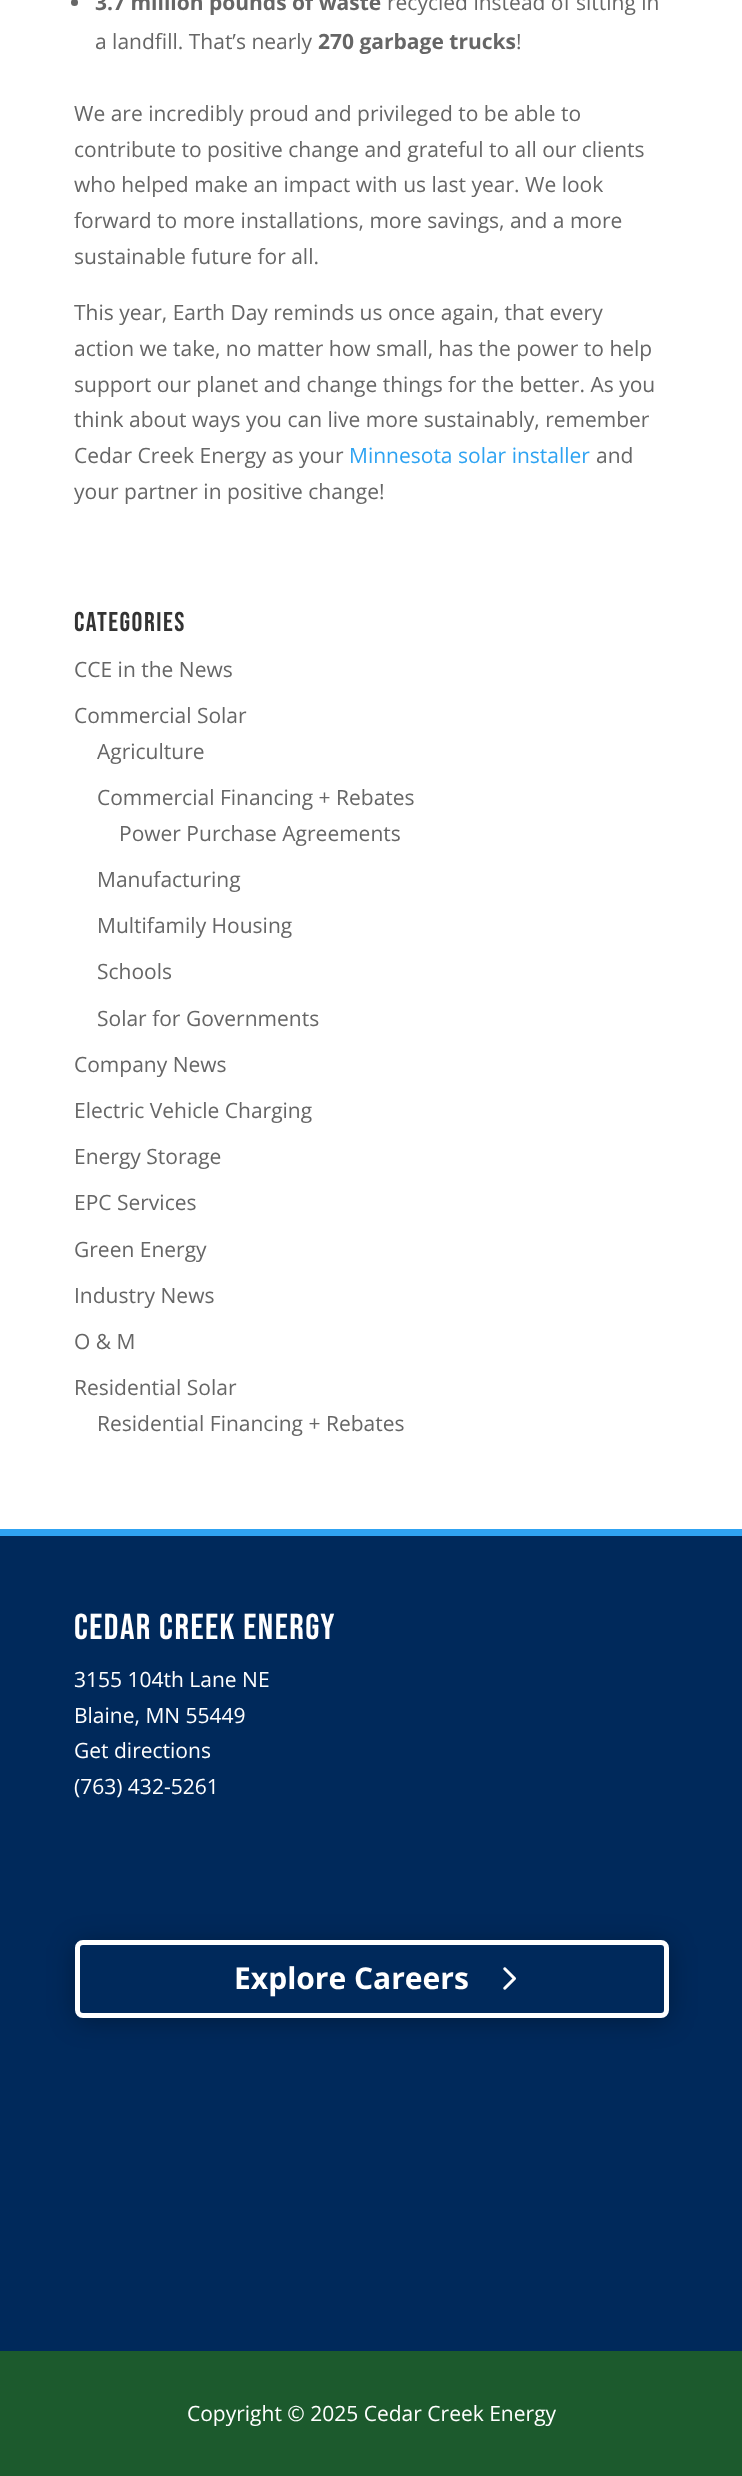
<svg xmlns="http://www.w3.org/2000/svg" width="742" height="2476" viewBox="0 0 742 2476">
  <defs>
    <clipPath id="clip1"><path d="M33 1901H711V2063H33ZM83 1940H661C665.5 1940 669 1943.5 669 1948V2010C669 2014.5 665.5 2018 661 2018H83C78.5 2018 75 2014.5 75 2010V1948C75 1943.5 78.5 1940 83 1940Z" clip-rule="evenodd"/></clipPath>
  </defs>
  <rect width="100%" height="100%" fill="#fff"/>
  <circle cx="74.5" cy="2.5" r="3.5" fill="#666"/>
  <path d="M0 1536h742v815H0z" fill="#00295b"/>
  <path d="M0 1529h742v7H0z" fill="#30a3f2"/>
  <g clip-path="url(#clip1)">
    <rect x="75" y="1943" width="594" height="78" rx="8" fill="#0000004d" filter="blur(13.5px)"/>
  </g>
  <rect x="77.5" y="1942.5" width="589" height="73" rx="5.5" fill="none" stroke="#fff" stroke-width="5"/>
  <image x="503" y="1967" width="13" height="23" href="img/1.png"/>
  <path d="M0 2351h742v125H0z" fill="#1c5a2d"/>
  <text x="95" y="10" font-family="Open Sans" font-size="21" font-weight="bold" fill="#666">3.7 million pounds of waste</text>
  <g font-family="Open Sans" font-size="21" fill="#666">
    <text x="387" y="10">recycled instead of sitting in</text>
    <text x="95" y="49">a landfill. That’s nearly</text>
  </g>
  <text x="318" y="49" font-family="Open Sans" font-size="21" font-weight="bold" fill="#666">270 garbage trucks</text>
  <g font-family="Open Sans" font-size="21" fill="#666">
    <text x="516" y="49">!</text>
    <text x="74" y="121">We are incredibly proud and privileged to be able to</text>
    <text x="74" y="157">contribute to positive change and grateful to all our clients</text>
    <text x="74" y="192">who helped make an impact with us last year. We look</text>
    <text x="74" y="228">forward to more installations, more savings, and a more</text>
    <text x="74" y="264">sustainable future for all.</text>
    <text x="74" y="320">This year, Earth Day reminds us once again, that every</text>
    <text x="74" y="356">action we take, no matter how small, has the power to help</text>
    <text x="74" y="392">support our planet and change things for the better. As you</text>
    <text x="74" y="427">think about ways you can live more sustainably, remember</text>
    <text x="74" y="463">Cedar Creek Energy as your</text>
  </g>
  <text x="349" y="463" font-family="Open Sans" font-size="21" fill="#2ea3f2">Minnesota solar installer</text>
  <g font-family="Open Sans" font-size="21" fill="#666">
    <text x="596" y="463">and</text>
    <text x="74" y="499">your partner in positive change!</text>
  </g>
  <text x="74" y="631" font-family="Bebas Neue" font-size="27" letter-spacing="1.5" fill="#333">Categories</text>
  <g font-family="Open Sans" font-size="21" fill="#666">
    <text x="74" y="677">CCE in the News</text>
    <text x="74" y="723">Commercial Solar</text>
    <text x="97" y="759">Agriculture</text>
    <text x="97" y="805">Commercial Financing + Rebates</text>
    <text x="119" y="841">Power Purchase Agreements</text>
    <text x="97" y="887">Manufacturing</text>
    <text x="97" y="933">Multifamily Housing</text>
    <text x="97" y="979">Schools</text>
    <text x="97" y="1026">Solar for Governments</text>
    <text x="74" y="1072">Company News</text>
    <text x="74" y="1118">Electric Vehicle Charging</text>
    <text x="74" y="1164">Energy Storage</text>
    <text x="74" y="1210">EPC Services</text>
    <text x="74" y="1257">Green Energy</text>
    <text x="74" y="1303">Industry News</text>
    <text x="74" y="1349">O &amp; M</text>
    <text x="74" y="1395">Residential Solar</text>
    <text x="97" y="1431">Residential Financing + Rebates</text>
  </g>
  <text x="74" y="1639" font-family="Bebas Neue" font-size="36" letter-spacing="1.5" fill="#fff">Cedar Creek Energy</text>
  <g font-family="Open Sans" font-size="21" fill="#fff">
    <text x="74" y="1687">3155 104th Lane NE</text>
    <text x="74" y="1723">Blaine, MN 55449</text>
    <text x="74" y="1758">Get directions</text>
    <text x="74" y="1794">(763) 432-5261</text>
  </g>
  <text x="234" y="1989" font-family="Open Sans" font-size="30" font-weight="bold" fill="#fff">Explore Careers</text>
  <text x="187" y="2421" font-family="Open Sans" font-size="21" fill="#fff">Copyright © 2025 Cedar Creek Energy</text>
</svg>
